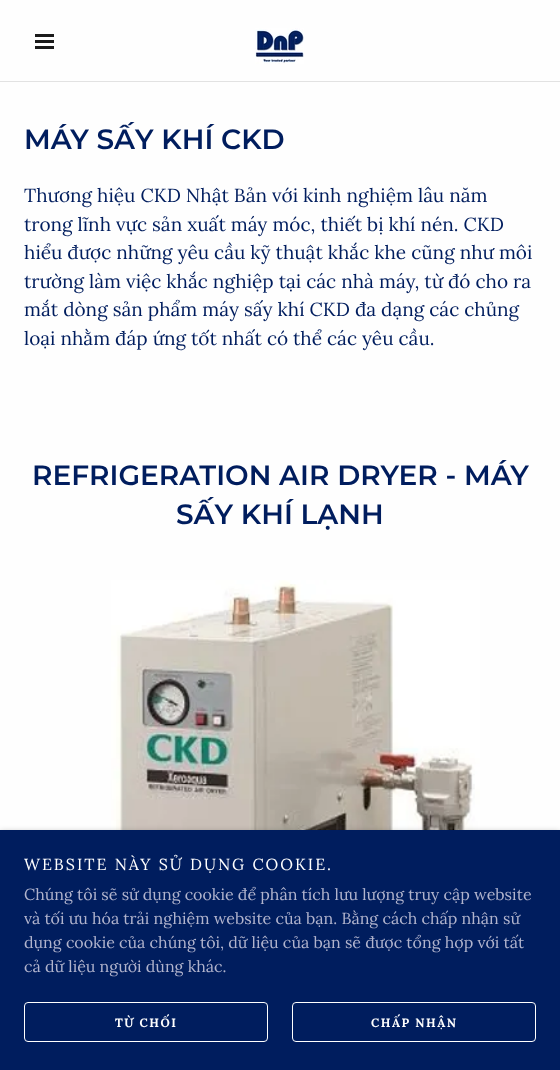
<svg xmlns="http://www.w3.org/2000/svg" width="560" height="1070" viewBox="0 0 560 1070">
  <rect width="100%" height="100%" fill="#fefefe"/>
  <path d="M35 34h19v3H35z" fill="#1b1b1b"/>
  <path d="M35 40h19v3H35z" fill="#1b1b1b"/>
  <path d="M35 46h19v3H35z" fill="#1b1b1b"/>
  <image x="255" y="28" width="49" height="36" href="img/1.png"/>
  <path d="M0 81h560v1H0z" fill="#e2e2e2"/>
  <image x="111" y="580" width="369" height="250" href="img/2.png"/>
  <path d="M0 832h560v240H0z" fill="#0000004d" filter="blur(3px)"/>
  <path d="M0 830h560v240H0z" fill="#001d5e"/>
  <rect x="24.5" y="1002.5" width="243" height="39" rx="3.5" fill="none" stroke="#fff"/>
  <rect x="292.5" y="1002.5" width="243" height="39" rx="3.5" fill="none" stroke="#fff"/>
  <text x="24" y="149" font-family="Montserrat" font-size="28" font-weight="600" fill="#001d5e">MÁY SẤY KHÍ CKD</text>
  <g font-family="Lora" font-size="19" fill="#001d5e">
    <text x="24" y="202">Thương hiệu CKD Nhật Bản với kinh nghiệm lâu năm</text>
    <text x="24" y="231">trong lĩnh vực sản xuất máy móc, thiết bị khí nén. CKD</text>
    <text x="24" y="259">hiểu được những yêu cầu kỹ thuật khắc khe cũng như môi</text>
    <text x="24" y="288">trường làm việc khắc nghiệp tại các nhà máy, từ đó cho ra</text>
    <text x="24" y="316">mắt dòng sản phẩm máy sấy khí CKD đa dạng các chủng</text>
    <text x="24" y="345">loại nhằm đáp ứng tốt nhất có thể các yêu cầu.</text>
  </g>
  <g font-family="Montserrat" font-size="28" font-weight="600" fill="#001d5e">
    <text x="32" y="485">REFRIGERATION AIR DRYER - MÁY</text>
    <text x="176" y="524">SẤY KHÍ LẠNH</text>
  </g>
  <text x="24" y="870" font-family="Lora" font-size="16" letter-spacing="2" fill="#fff">WEBSITE NÀY SỬ DỤNG COOKIE.</text>
  <g font-family="Lora" font-size="16" fill="#b1b4cd">
    <text x="24" y="900">Chúng tôi sẽ sử dụng cookie để phân tích lưu lượng truy cập website</text>
    <text x="24" y="924">và tối ưu hóa trải nghiệm website của bạn. Bằng cách chấp nhận sử</text>
    <text x="24" y="948">dụng cookie của chúng tôi, dữ liệu của bạn sẽ được tổng hợp với tất</text>
    <text x="24" y="972">cả dữ liệu người dùng khác.</text>
  </g>
  <g font-family="Lora" font-size="12" font-weight="bold" letter-spacing="1.5" fill="#fff">
    <text x="115" y="1027">TỪ CHỐI</text>
    <text x="371" y="1027">CHẤP NHẬN</text>
  </g>
</svg>
